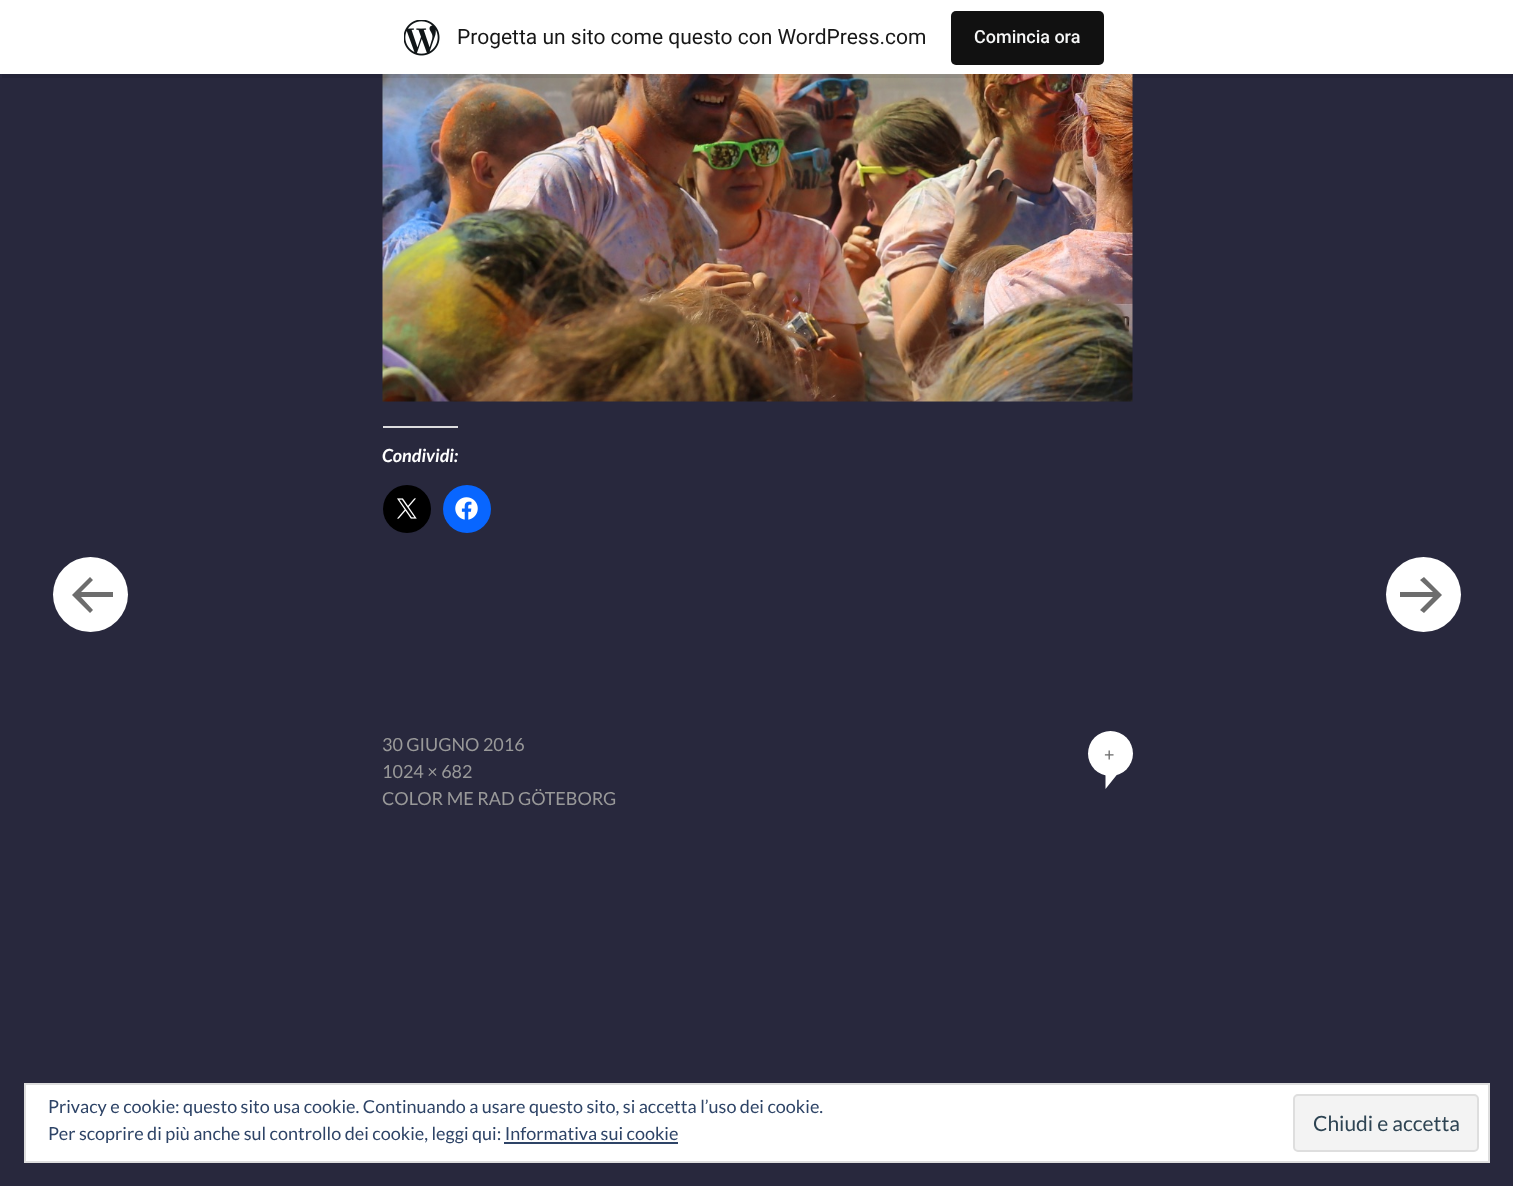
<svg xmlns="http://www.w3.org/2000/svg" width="1513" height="1186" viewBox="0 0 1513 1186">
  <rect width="100%" height="100%" fill="#28283d"/>
  <image x="382" y="74" width="751" height="328" href="img/2.png"/>
  <path d="M2 74V78H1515V5H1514V74Z" fill="#00000014"/>
  <path d="M0 0h1513v74H0z" fill="#fff"/>
  <image x="404" y="20" width="36" height="36" href="img/1.png"/>
  <rect x="951" y="11" width="153" height="54" rx="5" fill="#111"/>
  <path d="M383 426h75v2H383z" fill="#dcdcde"/>
  <circle cx="407" cy="509" r="24" fill="#000"/>
  <image x="397" y="498" width="20" height="21" href="img/3.png"/>
  <circle cx="467" cy="509" r="24" fill="#0866ff"/>
  <image x="455" y="497" width="23" height="23" href="img/4.png"/>
  <path d="M1105.5 774H1117.5L1105.5 789Z" fill="#fff"/>
  <circle cx="1110.5" cy="753.5" r="22.5" fill="#fff"/>
  <circle cx="90.5" cy="594.5" r="37.5" fill="#fff"/>
  <path d="M72 595L90 613L93 610L81 597H113V592H81L93 580L90 577Z" fill="#6d6d6d"/>
  <circle cx="1423.5" cy="594.5" r="37.5" fill="#fff"/>
  <path d="M1442 595L1424 613L1420 610L1433 597H1400V592H1433L1420 580L1424 577Z" fill="#6d6d6d"/>
  <path d="M25 1084h1464v78H25z" fill="#fff" stroke="#dedede" stroke-width="2"/>
  <rect x="1294" y="1095" width="184" height="56" rx="4" fill="#f3f3f3" stroke="#dedede" stroke-width="2"/>
  <path d="M504 1142h174v2H504z" fill="#2e4467"/>
  <text x="457" y="44" font-family="Roboto" font-size="21" fill="#171717">Progetta un sito come questo con WordPress.com</text>
  <text x="974" y="43" font-family="Roboto" font-size="18" font-weight="500" fill="#f6f7f7">Comincia ora</text>
  <text x="382" y="462" font-family="Lato" font-size="18" font-weight="bold" font-style="italic" fill="#fff">Condividi:</text>
  <text x="382" y="751" font-family="Lato" font-size="18" fill="#999">30 GIUGNO 2016</text>
  <text x="1104" y="761" font-family="Lato" font-size="18" fill="#6d6d6d">+</text>
  <g font-family="Lato" font-size="18" fill="#999">
    <text x="382" y="778">1024 × 682</text>
    <text x="382" y="805">COLOR ME RAD GÖTEBORG</text>
  </g>
  <text x="48" y="1113" font-family="Lato" font-size="18" fill="#2e4467">Privacy e cookie: questo sito usa cookie. Continuando a usare questo sito, si accetta l’uso dei cookie.</text>
  <text x="1313" y="1131" font-family="Lato" font-size="21" fill="#2e4453">Chiudi e accetta</text>
  <text x="48" y="1140" font-family="Lato" font-size="18" fill="#2e4467">Per scoprire di più anche sul controllo dei cookie, leggi qui: Informativa sui cookie</text>
</svg>
